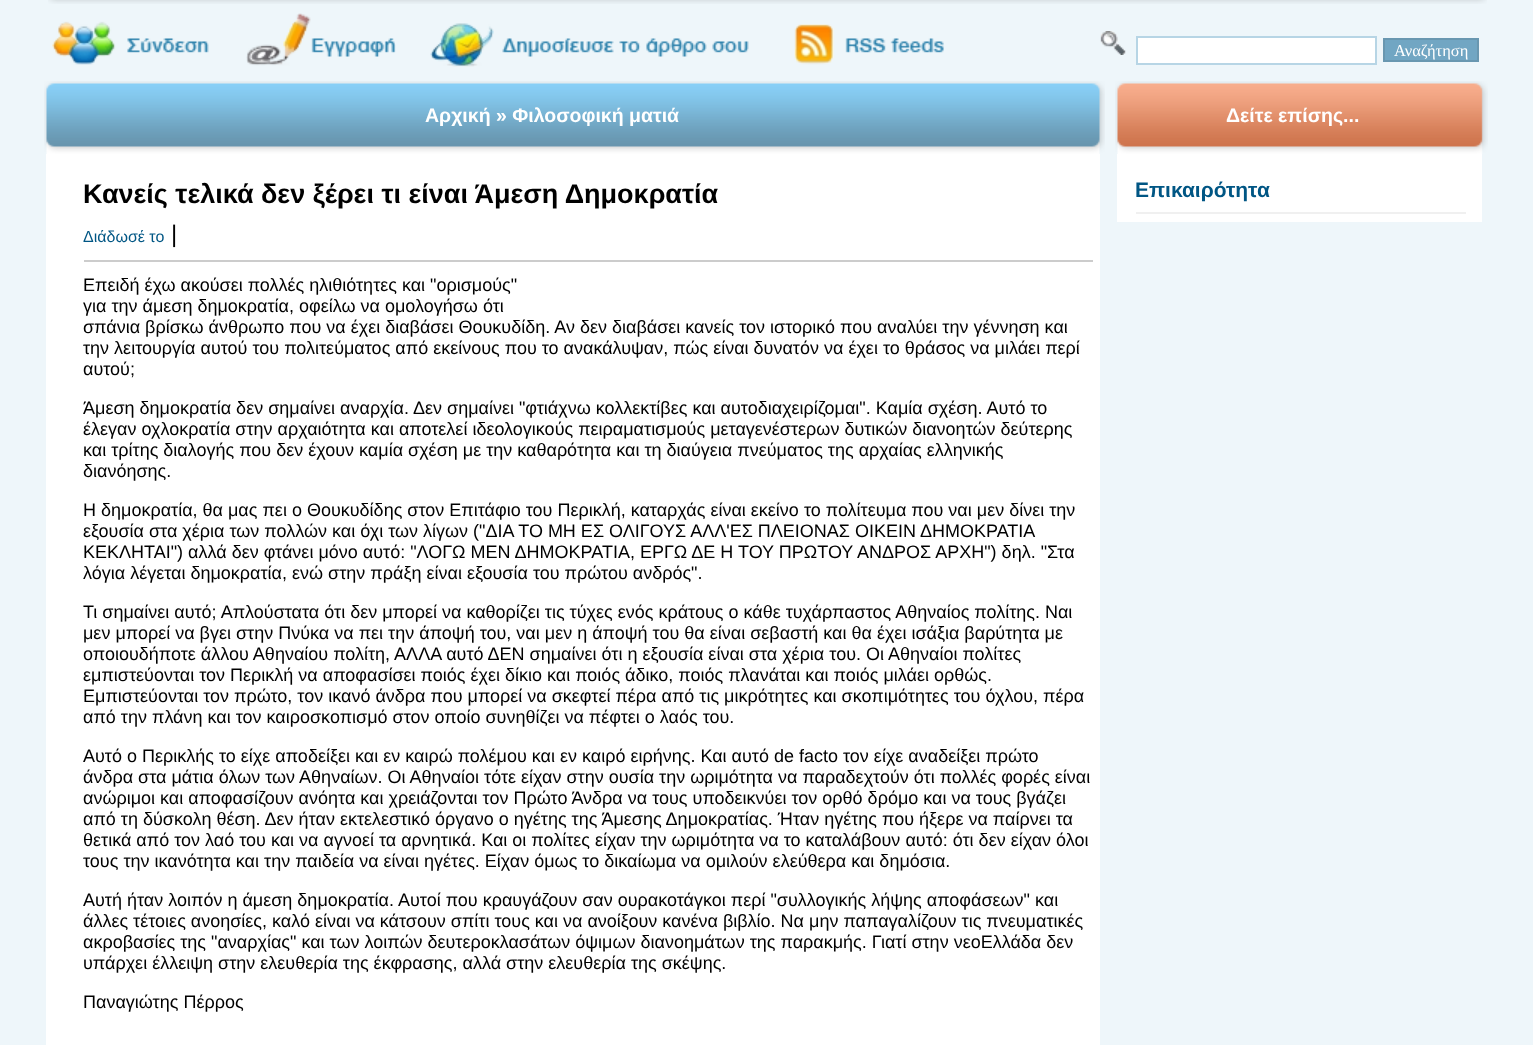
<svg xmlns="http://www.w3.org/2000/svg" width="1533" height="1045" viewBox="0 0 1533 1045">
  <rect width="100%" height="100%" fill="#eef6fa"/>
  <image x="48" y="0" width="1439" height="4" href="img/1.png"/>
  <image x="52" y="21" width="157" height="44" href="img/2.png"/>
  <image x="246" y="13" width="150" height="53" href="img/3.png"/>
  <image x="430" y="23" width="319" height="44" href="img/4.png"/>
  <image x="794" y="24" width="150" height="41" href="img/5.png"/>
  <image x="1100" y="31" width="26" height="24" href="img/6.png"/>
  <path d="M1137 37h239v27H1137z" fill="#fff" stroke="#b7d5e5" stroke-width="2"/>
  <path d="M1384 39h94v22H1384z" fill="#71a6c3" stroke="#6997b0" stroke-width="2"/>
  <image x="44" y="81" width="1061" height="73" href="img/7.png"/>
  <path d="M46 154h1054v891H46z" fill="#fff"/>
  <path d="M84 260h1009v2H84z" fill="#ccc"/>
  <image x="1115" y="81" width="373" height="73" href="img/8.png"/>
  <path d="M1117 154h365v68H1117z" fill="#fff"/>
  <path d="M1136 212h330v2H1136z" fill="#f0f0f0"/>
  <text x="1394" y="56" font-family="Liberation Serif" font-size="16.5" fill="#fff">Αναζήτηση</text>
  <text x="425" y="122" font-family="Liberation Sans" font-size="19.5" font-weight="bold" fill="#fff">Αρχική » Φιλοσοφική ματιά</text>
  <text x="83" y="203" font-family="Liberation Sans" font-size="27" font-weight="bold" fill="#000">Κανείς τελικά δεν ξέρει τι είναι Άμεση Δημοκρατία</text>
  <text x="83" y="242" font-family="Liberation Sans" font-size="16" fill="#005684">Διάδωσέ το</text>
  <text x="171" y="242" font-family="Liberation Sans" font-size="24" fill="#000">|</text>
  <g font-family="Liberation Sans" font-size="18" fill="#000">
    <text x="83" y="291">Επειδή έχω ακούσει πολλές ηλιθιότητες και "ορισμούς"</text>
    <text x="83" y="312">για την άμεση δημοκρατία, οφείλω να ομολογήσω ότι</text>
    <text x="83" y="333">σπάνια βρίσκω άνθρωπο που να έχει διαβάσει Θουκυδίδη. Αν δεν διαβάσει κανείς τον ιστορικό που αναλύει την γέννηση και</text>
    <text x="83" y="354">την λειτουργία αυτού του πολιτεύματος από εκείνους που το ανακάλυψαν, πώς είναι δυνατόν να έχει το θράσος να μιλάει περί</text>
    <text x="83" y="375">αυτού;</text>
    <text x="83" y="414">Άμεση δημοκρατία δεν σημαίνει αναρχία. Δεν σημαίνει "φτιάχνω κολλεκτίβες και αυτοδιαχειρίζομαι". Καμία σχέση. Αυτό το</text>
    <text x="83" y="435">έλεγαν οχλοκρατία στην αρχαιότητα και αποτελεί ιδεολογικούς πειραματισμούς μεταγενέστερων δυτικών διανοητών δεύτερης</text>
    <text x="83" y="456">και τρίτης διαλογής που δεν έχουν καμία σχέση με την καθαρότητα και τη διαύγεια πνεύματος της αρχαίας ελληνικής</text>
    <text x="83" y="477">διανόησης.</text>
    <text x="83" y="516">Η δημοκρατία, θα μας πει ο Θουκυδίδης στον Επιτάφιο του Περικλή, καταρχάς είναι εκείνο το πολίτευμα που ναι μεν δίνει την</text>
    <text x="83" y="537">εξουσία στα χέρια των πολλών και όχι των λίγων ("ΔΙΑ ΤΟ ΜΗ ΕΣ ΟΛΙΓΟΥΣ ΑΛΛ'ΕΣ ΠΛΕΙΟΝΑΣ ΟΙΚΕΙΝ ΔΗΜΟΚΡΑΤΙΑ</text>
    <text x="83" y="558">ΚΕΚΛΗΤΑΙ") αλλά δεν φτάνει μόνο αυτό: "ΛΟΓΩ ΜΕΝ ΔΗΜΟΚΡΑΤΙΑ, ΕΡΓΩ ΔΕ Η ΤΟΥ ΠΡΩΤΟΥ ΑΝΔΡΟΣ ΑΡΧΗ") δηλ. "Στα</text>
    <text x="83" y="579">λόγια λέγεται δημοκρατία, ενώ στην πράξη είναι εξουσία του πρώτου ανδρός".</text>
    <text x="83" y="618">Τι σημαίνει αυτό; Απλούστατα ότι δεν μπορεί να καθορίζει τις τύχες ενός κράτους ο κάθε τυχάρπαστος Αθηναίος πολίτης. Ναι</text>
    <text x="83" y="639">μεν μπορεί να βγει στην Πνύκα να πει την άποψή του, ναι μεν η άποψή του θα είναι σεβαστή και θα έχει ισάξια βαρύτητα με</text>
    <text x="83" y="660">οποιουδήποτε άλλου Αθηναίου πολίτη, ΑΛΛΑ αυτό ΔΕΝ σημαίνει ότι η εξουσία είναι στα χέρια του. Οι Αθηναίοι πολίτες</text>
    <text x="83" y="681">εμπιστεύονται τον Περικλή να αποφασίσει ποιός έχει δίκιο και ποιός άδικο, ποιός πλανάται και ποιός μιλάει ορθώς.</text>
    <text x="83" y="702">Εμπιστεύονται τον πρώτο, τον ικανό άνδρα που μπορεί να σκεφτεί πέρα από τις μικρότητες και σκοπιμότητες του όχλου, πέρα</text>
    <text x="83" y="723">από την πλάνη και τον καιροσκοπισμό στον οποίο συνηθίζει να πέφτει ο λαός του.</text>
    <text x="83" y="762">Αυτό ο Περικλής το είχε αποδείξει και εν καιρώ πολέμου και εν καιρό ειρήνης. Και αυτό de facto τον είχε αναδείξει πρώτο</text>
    <text x="83" y="783">άνδρα στα μάτια όλων των Αθηναίων. Οι Αθηναίοι τότε είχαν στην ουσία την ωριμότητα να παραδεχτούν ότι πολλές φορές είναι</text>
    <text x="83" y="804">ανώριμοι και αποφασίζουν ανόητα και χρειάζονται τον Πρώτο Άνδρα να τους υποδεικνύει τον ορθό δρόμο και να τους βγάζει</text>
    <text x="83" y="825">από τη δύσκολη θέση. Δεν ήταν εκτελεστικό όργανο ο ηγέτης της Άμεσης Δημοκρατίας. Ήταν ηγέτης που ήξερε να παίρνει τα</text>
    <text x="83" y="846">θετικά από τον λαό του και να αγνοεί τα αρνητικά. Και οι πολίτες είχαν την ωριμότητα να το καταλάβουν αυτό: ότι δεν είχαν όλοι</text>
    <text x="83" y="867">τους την ικανότητα και την παιδεία να είναι ηγέτες. Είχαν όμως το δικαίωμα να ομιλούν ελεύθερα και δημόσια.</text>
    <text x="83" y="906">Αυτή ήταν λοιπόν η άμεση δημοκρατία. Αυτοί που κραυγάζουν σαν ουρακοτάγκοι περί "συλλογικής λήψης αποφάσεων" και</text>
    <text x="83" y="927">άλλες τέτοιες ανοησίες, καλό είναι να κάτσουν σπίτι τους και να ανοίξουν κανένα βιβλίο. Να μην παπαγαλίζουν τις πνευματικές</text>
    <text x="83" y="948">ακροβασίες της "αναρχίας" και των λοιπών δευτεροκλασάτων όψιμων διανοημάτων της παρακμής. Γιατί στην νεοΕλλάδα δεν</text>
    <text x="83" y="969">υπάρχει έλλειψη στην ελευθερία της έκφρασης, αλλά στην ελευθερία της σκέψης.</text>
    <text x="83" y="1008">Παναγιώτης Πέρρος</text>
  </g>
  <text x="1226" y="122" font-family="Liberation Sans" font-size="19.5" font-weight="bold" fill="#fff">Δείτε επίσης...</text>
  <text x="1135" y="197" font-family="Liberation Sans" font-size="21" font-weight="bold" fill="#005684">Επικαιρότητα</text>
</svg>
